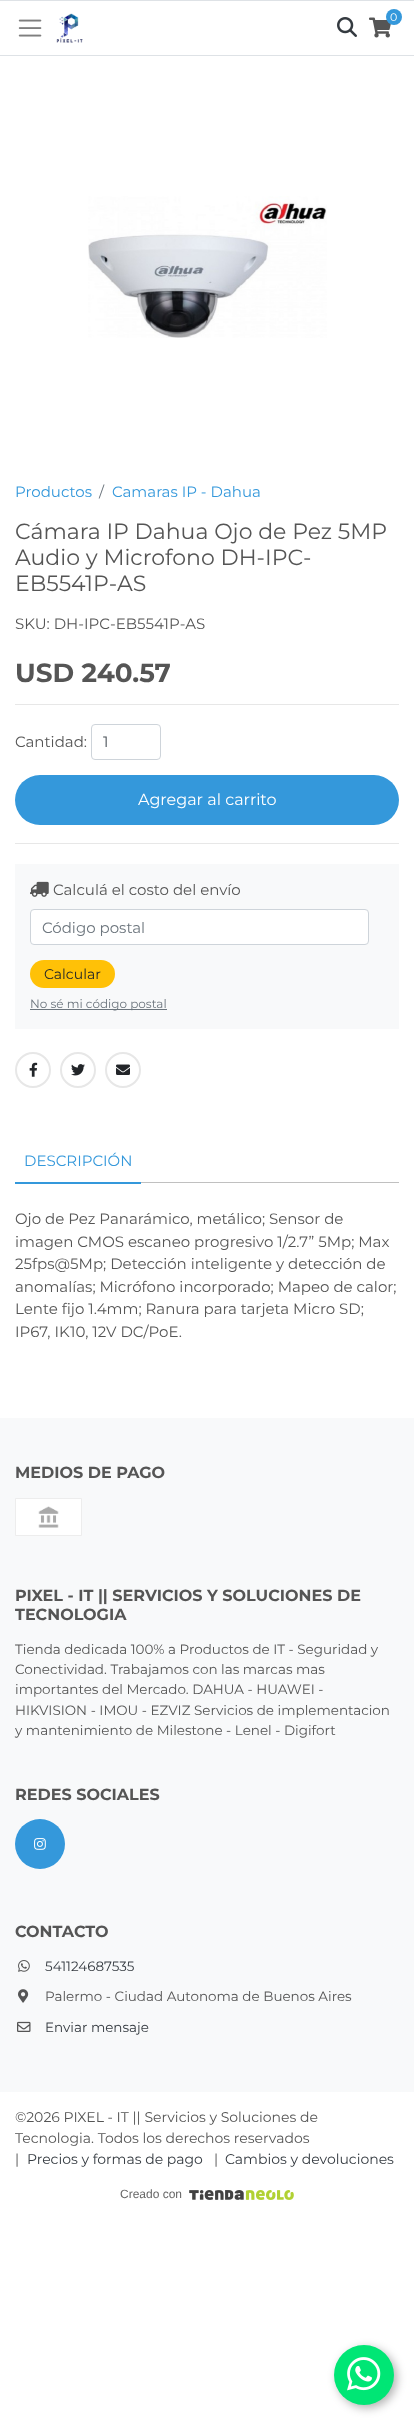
<svg xmlns="http://www.w3.org/2000/svg" width="414" height="2425" viewBox="0 0 414 2425">
  <rect width="100%" height="100%" fill="#fff"/>
  <path d="M0 0h414v1H0z" fill="#dee2e6"/>
  <path d="M0 55h414v1H0z" fill="#dee2e6"/>
  <image x="56" y="13" width="27" height="30" href="img/1.png"/>
  <image x="337" y="17" width="20" height="20" href="img/2.png"/>
  <image x="369" y="17" width="22" height="21" href="img/3.png"/>
  <circle cx="394" cy="17" r="8" fill="#3498db"/>
  <image x="18" y="19" width="24" height="18" href="img/4.png"/>
  <image x="88" y="196" width="239" height="142" href="img/5.png"/>
  <path d="M15 704h384v1H15z" fill="#e7e7e7"/>
  <path d="M15 843h384v1H15z" fill="#e7e7e7"/>
  <rect x="91.5" y="724.5" width="69" height="35" rx="3.5" fill="none" stroke="#ced4da"/>
  <rect x="15" y="775" width="384" height="50" rx="25" fill="#3498db"/>
  <path d="M15 864h384v165H15z" fill="#f8f9fa"/>
  <image x="30" y="881" width="19" height="16" href="img/6.png"/>
  <rect x="30.5" y="909.5" width="338" height="35" rx="3.5" fill="#fff" stroke="#ced4da"/>
  <rect x="30" y="960" width="85" height="28" rx="14" fill="#ffc107"/>
  <path d="M30 1009h137v1H30z" fill="#6c757d"/>
  <circle cx="33" cy="1070" r="17" fill="none" stroke="#e7e7e7" stroke-width="2"/>
  <image x="29" y="1062" width="9" height="15" href="img/7.png"/>
  <circle cx="78" cy="1070" r="17" fill="none" stroke="#e7e7e7" stroke-width="2"/>
  <image x="71" y="1064" width="14" height="12" href="img/8.png"/>
  <circle cx="123" cy="1070" r="17" fill="none" stroke="#e7e7e7" stroke-width="2"/>
  <image x="116" y="1064" width="14" height="11" href="img/9.png"/>
  <path d="M141 1182h258v1H141z" fill="#c0c0c0"/>
  <path d="M15 1182h126v2H15z" fill="#3498db"/>
  <path d="M0 1418h414v674H0z" fill="#f8f9fa"/>
  <path d="M15.5 1498.5h66v37H15.5z" fill="#fff" stroke="#ededed"/>
  <image x="38" y="1506" width="21" height="22" href="img/10.png"/>
  <circle cx="40" cy="1844" r="25" fill="#3498db"/>
  <image x="34" y="1838" width="12" height="12" href="img/11.png"/>
  <image x="18" y="1960" width="12" height="12" href="img/12.png"/>
  <image x="18" y="1989" width="11" height="14" href="img/13.png"/>
  <image x="17" y="2021" width="14" height="11" href="img/14.png"/>
  <image x="189" y="2190" width="105" height="10" href="img/15.png"/>
  <rect x="337" y="2348" width="60" height="60" rx="30" fill="#0000004d" filter="blur(5px)"/>
  <circle cx="364" cy="2375" r="30" fill="#00e675"/>
  <image x="347" y="2357" width="34" height="34" href="img/16.png"/>
  <text x="390" y="21" font-family="Montserrat" font-size="11" fill="#fff">0</text>
  <text x="15" y="497" font-family="Montserrat" font-size="15" fill="#3498db">Productos</text>
  <text x="99" y="497" font-family="Montserrat" font-size="15" fill="#6c757d">/</text>
  <text x="112" y="497" font-family="Montserrat" font-size="15" fill="#3498db">Camaras IP - Dahua</text>
  <g font-family="Montserrat" font-size="22" fill="#555">
    <text x="15" y="539">Cámara IP Dahua Ojo de Pez 5MP</text>
    <text x="15" y="565">Audio y Microfono DH-IPC-</text>
    <text x="15" y="591">EB5541P-AS</text>
  </g>
  <text x="15" y="629" font-family="Montserrat" font-size="15" fill="#555">SKU: DH-IPC-EB5541P-AS</text>
  <text x="15" y="682" font-family="Montserrat" font-size="26.25" font-weight="bold" fill="#555">USD 240.57</text>
  <text x="15" y="747" font-family="Montserrat" font-size="15" fill="#555">Cantidad:</text>
  <text x="103" y="747" font-family="Montserrat" font-size="15" fill="#495057">1</text>
  <text x="138" y="805" font-family="Montserrat" font-size="16" fill="#fff">Agregar al carrito</text>
  <text x="53" y="895" font-family="Montserrat" font-size="15" fill="#555">Calculá el costo del envío</text>
  <text x="42" y="933" font-family="Montserrat" font-size="15" fill="#6c757d">Código postal</text>
  <text x="44" y="979" font-family="Montserrat" font-size="14" fill="#212529">Calcular</text>
  <text x="30" y="1008" font-family="Montserrat" font-size="12" fill="#6c757d">No sé mi código postal</text>
  <text x="24" y="1166" font-family="Montserrat" font-size="15" fill="#3498db">DESCRIPCIÓN</text>
  <g font-family="Montserrat" font-size="15" fill="#555">
    <text x="15" y="1224">Ojo de Pez Panarámico, metálico; Sensor de</text>
    <text x="15" y="1247">imagen CMOS escaneo progresivo 1/2.7” 5Mp; Max</text>
    <text x="15" y="1269">25fps@5Mp; Detección inteligente y detección de</text>
    <text x="15" y="1292">anomalías; Micrófono incorporado; Mapeo de calor;</text>
    <text x="15" y="1314">Lente fijo 1.4mm; Ranura para tarjeta Micro SD;</text>
    <text x="15" y="1337">IP67, IK10, 12V DC/PoE.</text>
  </g>
  <g font-family="Montserrat" font-size="16" font-weight="bold" fill="#555">
    <text x="15" y="1478">MEDIOS DE PAGO</text>
    <text x="15" y="1601">PIXEL - IT || SERVICIOS Y SOLUCIONES DE</text>
    <text x="15" y="1620">TECNOLOGIA</text>
  </g>
  <g font-family="Montserrat" font-size="13.5" fill="#555">
    <text x="15" y="1654">Tienda dedicada 100% a Productos de IT - Seguridad y</text>
    <text x="15" y="1674">Conectividad. Trabajamos con las marcas mas</text>
    <text x="15" y="1694">importantes del Mercado. DAHUA - HUAWEI -</text>
    <text x="15" y="1715">HIKVISION - IMOU - EZVIZ Servicios de implementacion</text>
    <text x="15" y="1735">y mantenimiento de Milestone - Lenel - Digifort</text>
  </g>
  <g font-family="Montserrat" font-size="16" font-weight="bold" fill="#555">
    <text x="15" y="1800">REDES SOCIALES</text>
    <text x="15" y="1937">CONTACTO</text>
  </g>
  <text x="45" y="1971" font-family="Montserrat" font-size="13.5" fill="#343a40">541124687535</text>
  <text x="45" y="2001" font-family="Montserrat" font-size="13.5" fill="#555">Palermo - Ciudad Autonoma de Buenos Aires</text>
  <text x="45" y="2032" font-family="Montserrat" font-size="13.5" fill="#343a40">Enviar mensaje</text>
  <g font-family="Montserrat" font-size="14" fill="#555">
    <text x="15" y="2122">©2026 PIXEL - IT || Servicios y Soluciones de</text>
    <text x="15" y="2143">Tecnologia. Todos los derechos reservados</text>
    <text x="15" y="2164">|</text>
  </g>
  <text x="27" y="2164" font-family="Montserrat" font-size="14" fill="#343a40">Precios y formas de pago</text>
  <text x="214" y="2164" font-family="Montserrat" font-size="14" fill="#555">|</text>
  <text x="225" y="2164" font-family="Montserrat" font-size="14" fill="#343a40">Cambios y devoluciones</text>
  <text x="120" y="2198" font-family="Liberation Sans" font-size="12" fill="#666">Creado con</text>
</svg>
